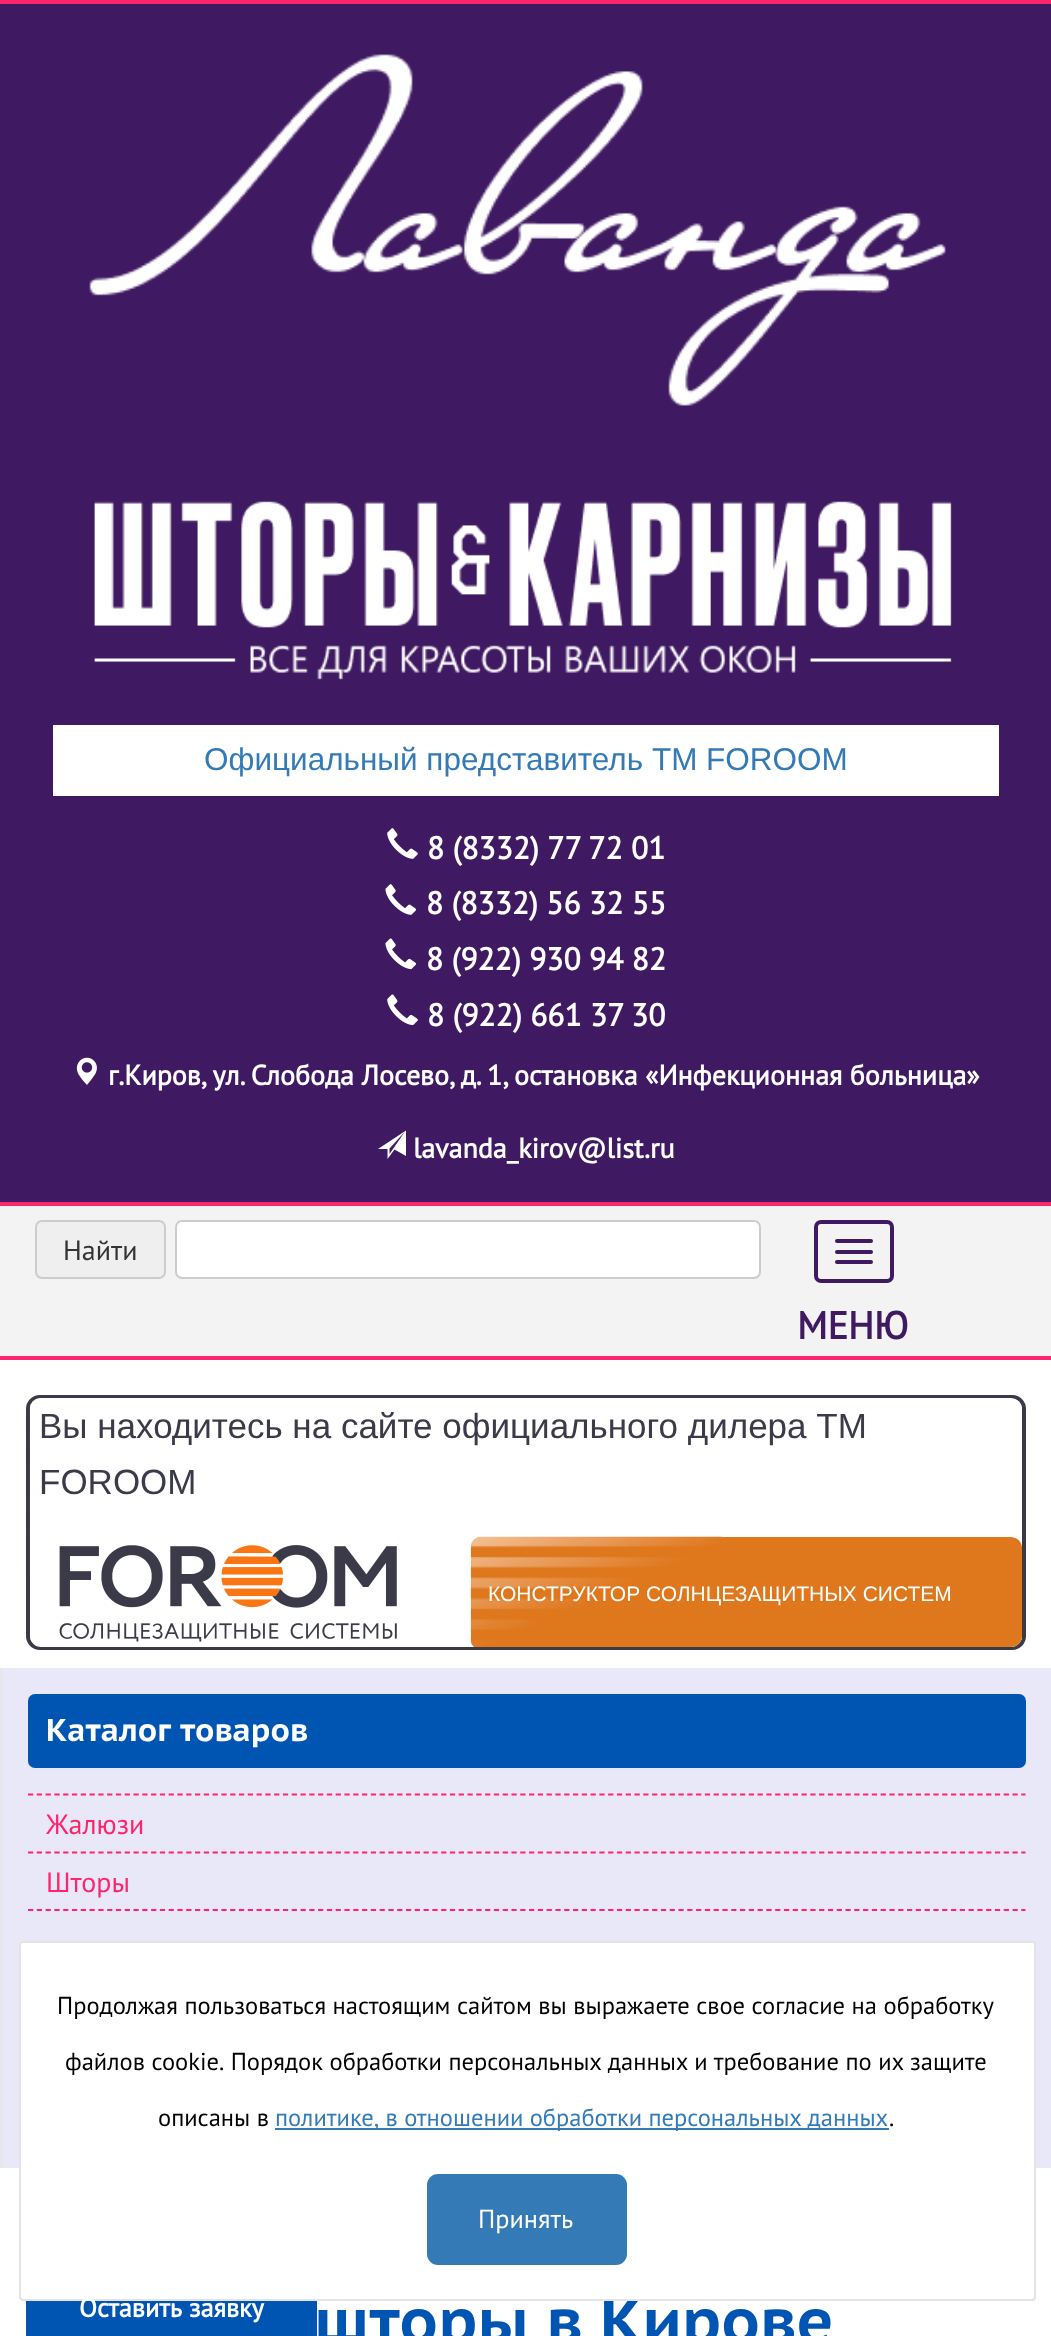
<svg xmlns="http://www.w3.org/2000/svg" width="1051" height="2336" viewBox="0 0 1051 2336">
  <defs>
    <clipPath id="clip1"><rect x="30" y="1398" width="992" height="249" rx="11"/></clipPath>
  </defs>
  <rect width="100%" height="100%" fill="#fff"/>
  <path d="M0 4h1051v1198H0z" fill="#3f1961"/>
  <path d="M0 0h1051v4H0z" fill="#ff256c"/>
  <image x="89" y="54" width="857" height="352" href="img/1.png"/>
  <image x="94" y="501" width="858" height="179" href="img/2.png"/>
  <path d="M53 725h946v71H53z" fill="#fff"/>
  <image x="387" y="828" width="31" height="31" href="img/3.png"/>
  <image x="385" y="884" width="32" height="31" href="img/4.png"/>
  <image x="385" y="938" width="31" height="32" href="img/5.png"/>
  <image x="387" y="994" width="31" height="32" href="img/6.png"/>
  <image x="76" y="1057" width="21" height="28" href="img/7.png"/>
  <path d="M406 1156L394.5 1149.5L387.5 1159V1149H378L406 1130.5ZM389.5 1148.5V1154L405 1131.5Z" fill="#fff"/>
  <path d="M0 1206h1051v150H0z" fill="#f3f3f3"/>
  <path d="M0 1202h1051v4H0z" fill="#ff256c"/>
  <path d="M0 1356h1051v4H0z" fill="#ff256c"/>
  <rect x="36" y="1221" width="129" height="57" rx="6" fill="#efefef" stroke="#ccc" stroke-width="2"/>
  <rect x="176" y="1221" width="584" height="57" rx="6" fill="#fff" stroke="#ccc" stroke-width="2"/>
  <rect x="816" y="1222" width="76" height="59" rx="5" fill="none" stroke="#3f1961" stroke-width="4"/>
  <rect x="835" y="1239" width="38" height="4" rx="2" fill="#3f1961"/>
  <rect x="835" y="1250" width="38" height="4" rx="2" fill="#3f1961"/>
  <rect x="835" y="1260" width="38" height="4" rx="2" fill="#3f1961"/>
  <rect x="28" y="1397" width="996" height="251" rx="12" fill="none" stroke="#3b3a49" stroke-width="4"/>
  <image x="29" y="1398" width="12" height="175" href="img/8.png"/>
  <rect x="30" y="1398" width="992" height="249" rx="11" fill="#fff"/>
  <image x="59" y="1545" width="338" height="97" href="img/9.png"/>
  <g clip-path="url(#clip1)">
    <rect x="471" y="1537" width="551" height="113" rx="11" fill="#df771c"/>
  </g>
  <image x="470" y="1536" width="256" height="111" href="img/10.png"/>
  <path d="M2 1668h1049v500H2z" fill="#e8e8f9"/>
  <path d="M0 1668h2v500H0z" fill="#e7e7e7"/>
  <rect x="28" y="1694" width="998" height="74" rx="7" fill="#0055b3"/>
  <path d="M28 1794.5H1025.5" fill="none" stroke="#ff256c" stroke-width="1.8" stroke-dasharray="5.25 3.54"/>
  <path d="M28 1852.5H1025.5" fill="none" stroke="#ff256c" stroke-width="1.8" stroke-dasharray="5.25 3.54"/>
  <path d="M28 1910H1025.5" fill="none" stroke="#ff256c" stroke-width="1.8" stroke-dasharray="5.25 3.54"/>
  <path d="M26 2301h291v35H26z" fill="#0055b3"/>
  <text x="204" y="770" font-family="Liberation Sans" font-size="31.5" fill="#337ab7">Официальный представитель ТМ FOROOM</text>
  <g font-family="PT Sans" font-size="31.5" font-weight="bold" fill="#fff">
    <text x="427" y="859">8 (8332) 77 72 01</text>
    <text x="426" y="914">8 (8332) 56 32 55</text>
    <text x="426" y="970">8 (922) 930 94 82</text>
    <text x="427" y="1026">8 (922) 661 37 30</text>
  </g>
  <g font-family="PT Sans" font-size="28" font-weight="bold" fill="#fff">
    <text x="108" y="1085">г.Киров, yл. Слобода Лосево, д. 1, остановка «Инфекционная больница»</text>
    <text x="413" y="1158">lavanda_kirov@list.ru</text>
  </g>
  <text x="63" y="1260" font-family="PT Sans" font-size="28" fill="#333">Найти</text>
  <text x="797" y="1339" font-family="PT Sans" font-size="38.5" font-weight="bold" fill="#3f1961">МЕНЮ</text>
  <g font-family="Liberation Sans" font-size="35" fill="#3b3a49">
    <text x="39" y="1438">Вы находитесь на сайте официального дилера ТМ</text>
    <text x="39" y="1494">FOROOM</text>
  </g>
  <text x="488" y="1601" font-family="Liberation Sans" font-size="21" fill="#fff">КОНСТРУКТОР СОЛНЦЕЗАЩИТНЫХ СИСТЕМ</text>
  <text x="46" y="1741" word-spacing="2" font-family="PT Sans Caption" font-size="31.5" font-weight="bold" fill="#fff">Каталог товаров</text>
  <g font-family="PT Sans" font-size="28" fill="#ff256c">
    <text x="46" y="1834">Жалюзи</text>
    <text x="46" y="1892">Шторы</text>
  </g>
  <text x="314" y="2343" font-family="PT Sans Caption" font-size="63" font-weight="bold" fill="#0055b3">шторы в Кирове</text>
  <rect x="20" y="1942" width="1015" height="358" rx="3" fill="#fff" stroke="#e4e4e4" stroke-width="2"/>
  <g font-family="PT Sans" font-size="24.5" fill="#000">
    <text x="57" y="2014">Продолжая пользоваться настоящим сайтом вы выражаете свое согласие на обработку</text>
    <text x="65" y="2070">файлов cookie. Порядок обработки персональных данных и требование по их защите</text>
    <text x="158" y="2126">описаны в</text>
  </g>
  <path d="M275 2128h614v2H275z" fill="#337ab7"/>
  <text x="275" y="2126" word-spacing="-0.25" font-family="PT Sans" font-size="24.5" fill="#337ab7">политике, в отношении обработки персональных данных</text>
  <text x="889" y="2126" font-family="PT Sans" font-size="24.5" fill="#000">.</text>
  <rect x="427" y="2174" width="200" height="91" rx="11" fill="#337ab7"/>
  <text x="478" y="2228" font-family="PT Sans" font-size="26.25" fill="#fff">Принять</text>
  <text x="79" y="2317" font-family="PT Sans" font-size="26.25" font-weight="bold" fill="#fff">Оставить заявку</text>
</svg>
